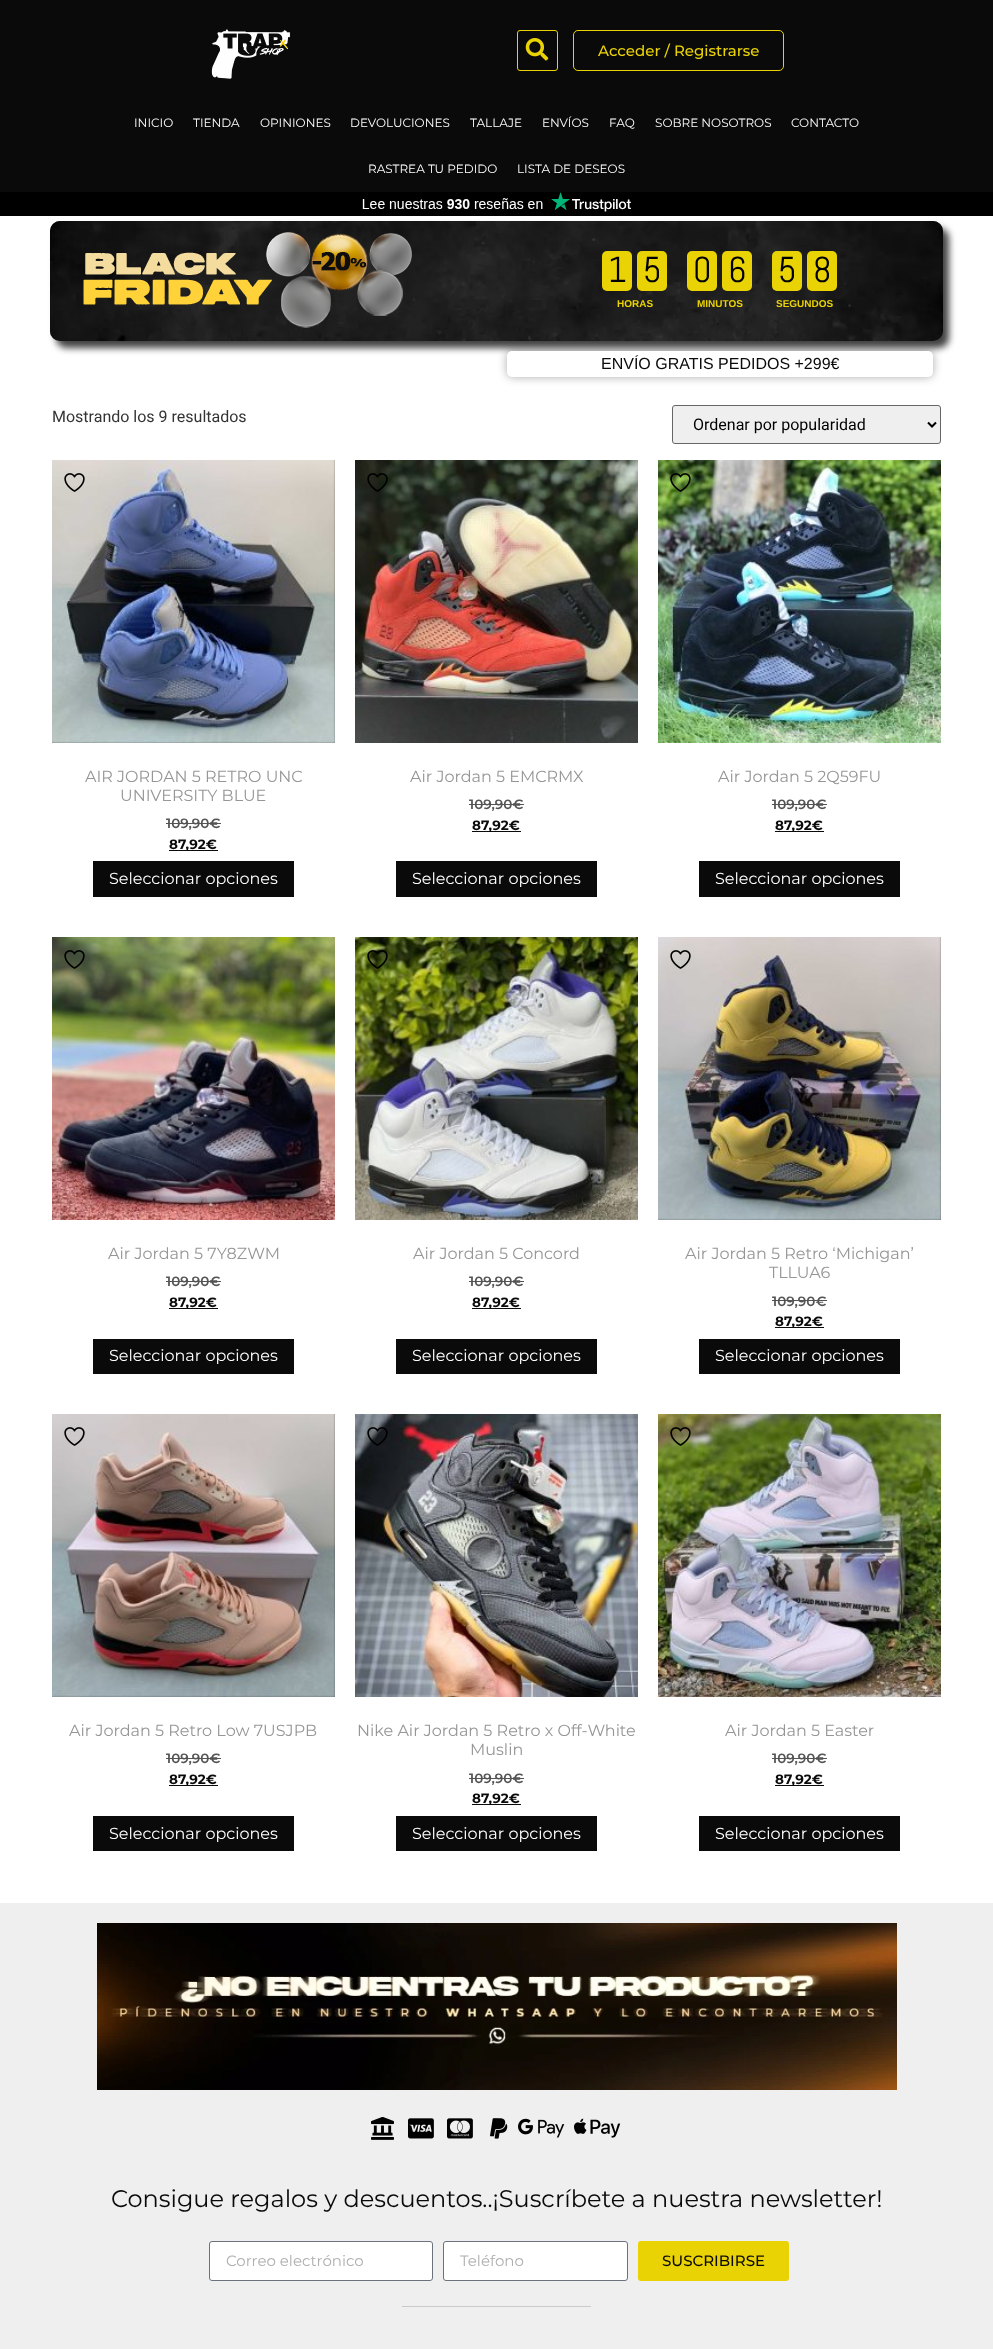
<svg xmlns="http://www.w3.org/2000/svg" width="993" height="2349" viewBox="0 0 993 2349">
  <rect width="100%" height="100%" fill="#fff"/>
  <path d="M0 0h993v192H0z" fill="#0a0a0a"/>
  <image x="211" y="29" width="80" height="50" href="img/1.png"/>
  <rect x="517.5" y="30.5" width="40" height="40" rx="2.5" fill="none" stroke="#ead304"/>
  <image x="525" y="38" width="24" height="23" href="img/2.png"/>
  <rect x="573.5" y="30.5" width="210" height="40" rx="4.5" fill="none" stroke="#ead304"/>
  <path d="M0 192h993v24H0z" fill="#000"/>
  <image x="362" y="192" width="269" height="20" href="img/3.png"/>
  <rect x="56" y="228" width="893" height="120" rx="10" fill="#424242" filter="blur(3.5px)"/>
  <rect x="50" y="221" width="893" height="120" rx="10" fill="#474747"/>
  <image x="50" y="221" width="893" height="120" href="img/4.png"/>
  <image x="83" y="232" width="329" height="96" href="img/5.png"/>
  <rect x="602" y="251" width="30" height="40" rx="5" fill="#ead304"/>
  <rect x="637" y="251" width="30" height="40" rx="5" fill="#ead304"/>
  <rect x="687" y="251" width="30" height="40" rx="5" fill="#ead304"/>
  <rect x="722" y="251" width="30" height="40" rx="5" fill="#ead304"/>
  <rect x="772" y="251" width="30" height="40" rx="5" fill="#ead304"/>
  <rect x="807" y="251" width="30" height="40" rx="5" fill="#ead304"/>
  <rect x="507" y="351" width="426" height="26" rx="5" fill="#00000054" filter="blur(5px)"/>
  <rect x="507" y="351" width="426" height="26" rx="5" fill="#fff"/>
  <rect x="672.5" y="405.5" width="268" height="38" rx="2.5" fill="#efefef" stroke="#666"/>
  <path d="M928 422.5L932 426.5L936 422.5" fill="none" stroke="#000" stroke-width="2"/>
  <image x="52" y="460" width="283" height="283" href="img/7.png"/>
  <image x="64" y="473" width="21" height="19" href="img/6.png"/>
  <path d="M166 823h55v1H166z" fill="#545454"/>
  <path d="M169 850h49v1H169z" fill="#0a0a0a"/>
  <path d="M93 861h201v36H93z" fill="#0a0a0a"/>
  <image x="355" y="460" width="283" height="283" href="img/9.png"/>
  <image x="367" y="473" width="21" height="19" href="img/8.png"/>
  <path d="M469 804h55v1H469z" fill="#545454"/>
  <path d="M472 831h49v1H472z" fill="#0a0a0a"/>
  <path d="M396 861h201v36H396z" fill="#0a0a0a"/>
  <image x="658" y="460" width="283" height="283" href="img/11.png"/>
  <image x="670" y="473" width="21" height="19" href="img/10.png"/>
  <path d="M772 804h55v1H772z" fill="#545454"/>
  <path d="M775 831h49v1H775z" fill="#0a0a0a"/>
  <path d="M699 861h201v36H699z" fill="#0a0a0a"/>
  <image x="52" y="937" width="283" height="283" href="img/13.png"/>
  <image x="64" y="950" width="21" height="19" href="img/12.png"/>
  <path d="M166 1281h55v1H166z" fill="#545454"/>
  <path d="M169 1308h49v1H169z" fill="#0a0a0a"/>
  <path d="M93 1339h201v35H93z" fill="#0a0a0a"/>
  <image x="355" y="937" width="283" height="283" href="img/15.png"/>
  <image x="367" y="950" width="21" height="19" href="img/14.png"/>
  <path d="M469 1281h55v1H469z" fill="#545454"/>
  <path d="M472 1308h49v1H472z" fill="#0a0a0a"/>
  <path d="M396 1339h201v35H396z" fill="#0a0a0a"/>
  <image x="658" y="937" width="283" height="283" href="img/17.png"/>
  <image x="670" y="950" width="21" height="19" href="img/16.png"/>
  <path d="M772 1300h55v1H772z" fill="#545454"/>
  <path d="M775 1327h49v1H775z" fill="#0a0a0a"/>
  <path d="M699 1339h201v35H699z" fill="#0a0a0a"/>
  <image x="52" y="1414" width="283" height="283" href="img/19.png"/>
  <image x="64" y="1427" width="21" height="19" href="img/18.png"/>
  <path d="M166 1758h55v1H166z" fill="#545454"/>
  <path d="M169 1785h49v1H169z" fill="#0a0a0a"/>
  <path d="M93 1816h201v35H93z" fill="#0a0a0a"/>
  <image x="355" y="1414" width="283" height="283" href="img/21.png"/>
  <image x="367" y="1427" width="21" height="19" href="img/20.png"/>
  <path d="M469 1778h55v1H469z" fill="#545454"/>
  <path d="M472 1804h49v1H472z" fill="#0a0a0a"/>
  <path d="M396 1816h201v35H396z" fill="#0a0a0a"/>
  <image x="658" y="1414" width="283" height="283" href="img/23.png"/>
  <image x="670" y="1427" width="21" height="19" href="img/22.png"/>
  <path d="M772 1758h55v1H772z" fill="#545454"/>
  <path d="M775 1785h49v1H775z" fill="#0a0a0a"/>
  <path d="M699 1816h201v35H699z" fill="#0a0a0a"/>
  <path d="M0 1903h993v446H0z" fill="#efefef"/>
  <image x="97" y="1923" width="800" height="167" href="img/24.png"/>
  <image x="371" y="2117" width="23" height="23" href="img/25.png"/>
  <image x="408" y="2118" width="26" height="21" href="img/26.png"/>
  <image x="447" y="2118" width="26" height="21" href="img/27.png"/>
  <image x="490" y="2118" width="18" height="21" href="img/28.png"/>
  <image x="518" y="2118" width="47" height="20" href="img/29.png"/>
  <image x="574" y="2118" width="47" height="20" href="img/30.png"/>
  <rect x="209.5" y="2241.5" width="223" height="39" rx="2.5" fill="#fff" stroke="#69727d"/>
  <rect x="443.5" y="2241.5" width="184" height="39" rx="2.5" fill="#fff" stroke="#69727d"/>
  <rect x="638" y="2241" width="151" height="40" rx="3" fill="#ead304"/>
  <path d="M402 2306h189v1H402z" fill="#cacaca"/>
  <text x="598" y="56" font-family="Montserrat" font-size="15" font-weight="500" fill="#ead304">Acceder / Registrarse</text>
  <g font-family="Montserrat" font-size="12" fill="#fff">
    <text x="134" y="127">INICIO</text>
    <text x="193" y="127">TIENDA</text>
    <text x="260" y="127">OPINIONES</text>
    <text x="350" y="127">DEVOLUCIONES</text>
    <text x="470" y="127">TALLAJE</text>
    <text x="542" y="127">ENVÍOS</text>
    <text x="609" y="127">FAQ</text>
    <text x="655" y="127">SOBRE NOSOTROS</text>
    <text x="791" y="127">CONTACTO</text>
    <text x="368" y="173">RASTREA TU PEDIDO</text>
    <text x="517" y="173">LISTA DE DESEOS</text>
  </g>
  <g font-family="Abel" font-size="36" fill="#000">
    <text x="608" y="282">1</text>
    <text x="643" y="282">5</text>
  </g>
  <text x="617" y="307" font-family="Liberation Sans" font-size="10" font-weight="bold" fill="#ead304">HORAS</text>
  <g font-family="Abel" font-size="36" fill="#000">
    <text x="693" y="282">0</text>
    <text x="728" y="282">6</text>
  </g>
  <text x="697" y="307" font-family="Liberation Sans" font-size="10" font-weight="bold" fill="#ead304">MINUTOS</text>
  <g font-family="Abel" font-size="36" fill="#000">
    <text x="778" y="282">5</text>
    <text x="813" y="282">8</text>
  </g>
  <text x="776" y="307" font-family="Liberation Sans" font-size="10" font-weight="bold" fill="#ead304">SEGUNDOS</text>
  <text x="601" y="369" font-family="Liberation Sans" font-size="16" fill="#0a0a0a">ENVÍO GRATIS PEDIDOS +299€</text>
  <text x="52" y="422" font-family="Roboto" font-size="16" fill="#333">Mostrando los 9 resultados</text>
  <text x="693" y="430" font-family="Roboto" font-size="16" fill="#000">Ordenar por popularidad</text>
  <g font-family="Montserrat" font-size="16" fill="#969696">
    <text x="85" y="782">AIR JORDAN 5 RETRO UNC</text>
    <text x="120" y="801">UNIVERSITY BLUE</text>
  </g>
  <text x="166" y="828" font-family="Montserrat" font-size="13.5" font-weight="600" fill="#545454">109,90€</text>
  <text x="169" y="849" font-family="Montserrat" font-size="13.5" font-weight="bold" fill="#0a0a0a">87,92€</text>
  <text x="109" y="884" font-family="Montserrat" font-size="16" fill="#fff">Seleccionar opciones</text>
  <text x="410" y="782" font-family="Montserrat" font-size="16" fill="#969696">Air Jordan 5 EMCRMX</text>
  <text x="469" y="809" font-family="Montserrat" font-size="13.5" font-weight="600" fill="#545454">109,90€</text>
  <text x="472" y="830" font-family="Montserrat" font-size="13.5" font-weight="bold" fill="#0a0a0a">87,92€</text>
  <text x="412" y="884" font-family="Montserrat" font-size="16" fill="#fff">Seleccionar opciones</text>
  <text x="718" y="782" font-family="Montserrat" font-size="16" fill="#969696">Air Jordan 5 2Q59FU</text>
  <text x="772" y="809" font-family="Montserrat" font-size="13.5" font-weight="600" fill="#545454">109,90€</text>
  <text x="775" y="830" font-family="Montserrat" font-size="13.5" font-weight="bold" fill="#0a0a0a">87,92€</text>
  <text x="715" y="884" font-family="Montserrat" font-size="16" fill="#fff">Seleccionar opciones</text>
  <text x="108" y="1259" font-family="Montserrat" font-size="16" fill="#969696">Air Jordan 5 7Y8ZWM</text>
  <text x="166" y="1286" font-family="Montserrat" font-size="13.5" font-weight="600" fill="#545454">109,90€</text>
  <text x="169" y="1307" font-family="Montserrat" font-size="13.5" font-weight="bold" fill="#0a0a0a">87,92€</text>
  <text x="109" y="1361" font-family="Montserrat" font-size="16" fill="#fff">Seleccionar opciones</text>
  <text x="413" y="1259" font-family="Montserrat" font-size="16" fill="#969696">Air Jordan 5 Concord</text>
  <text x="469" y="1286" font-family="Montserrat" font-size="13.5" font-weight="600" fill="#545454">109,90€</text>
  <text x="472" y="1307" font-family="Montserrat" font-size="13.5" font-weight="bold" fill="#0a0a0a">87,92€</text>
  <text x="412" y="1361" font-family="Montserrat" font-size="16" fill="#fff">Seleccionar opciones</text>
  <g font-family="Montserrat" font-size="16" fill="#969696">
    <text x="685" y="1259">Air Jordan 5 Retro ‘Michigan’</text>
    <text x="769" y="1278">TLLUA6</text>
  </g>
  <text x="772" y="1306" font-family="Montserrat" font-size="13.5" font-weight="600" fill="#545454">109,90€</text>
  <text x="775" y="1326" font-family="Montserrat" font-size="13.5" font-weight="bold" fill="#0a0a0a">87,92€</text>
  <text x="715" y="1361" font-family="Montserrat" font-size="16" fill="#fff">Seleccionar opciones</text>
  <text x="69" y="1736" font-family="Montserrat" font-size="16" fill="#969696">Air Jordan 5 Retro Low 7USJPB</text>
  <text x="166" y="1763" font-family="Montserrat" font-size="13.5" font-weight="600" fill="#545454">109,90€</text>
  <text x="169" y="1784" font-family="Montserrat" font-size="13.5" font-weight="bold" fill="#0a0a0a">87,92€</text>
  <text x="109" y="1839" font-family="Montserrat" font-size="16" fill="#fff">Seleccionar opciones</text>
  <g font-family="Montserrat" font-size="16" fill="#969696">
    <text x="357" y="1736">Nike Air Jordan 5 Retro x Off-White</text>
    <text x="470" y="1755">Muslin</text>
  </g>
  <text x="469" y="1783" font-family="Montserrat" font-size="13.5" font-weight="600" fill="#545454">109,90€</text>
  <text x="472" y="1803" font-family="Montserrat" font-size="13.5" font-weight="bold" fill="#0a0a0a">87,92€</text>
  <text x="412" y="1839" font-family="Montserrat" font-size="16" fill="#fff">Seleccionar opciones</text>
  <text x="725" y="1736" font-family="Montserrat" font-size="16" fill="#969696">Air Jordan 5 Easter</text>
  <text x="772" y="1763" font-family="Montserrat" font-size="13.5" font-weight="600" fill="#545454">109,90€</text>
  <text x="775" y="1784" font-family="Montserrat" font-size="13.5" font-weight="bold" fill="#0a0a0a">87,92€</text>
  <text x="715" y="1839" font-family="Montserrat" font-size="16" fill="#fff">Seleccionar opciones</text>
  <text x="111" y="2207" font-family="Montserrat" font-size="24" fill="#0a0a0a">Consigue regalos y descuentos..¡Suscríbete a nuestra newsletter!</text>
  <g font-family="Montserrat" font-size="15" fill="#afafaf">
    <text x="226" y="2266">Correo electrónico</text>
    <text x="460" y="2266">Teléfono</text>
  </g>
  <text x="662" y="2266" font-family="Montserrat" font-size="15" font-weight="500" fill="#0a0a0a">SUSCRIBIRSE</text>
</svg>
